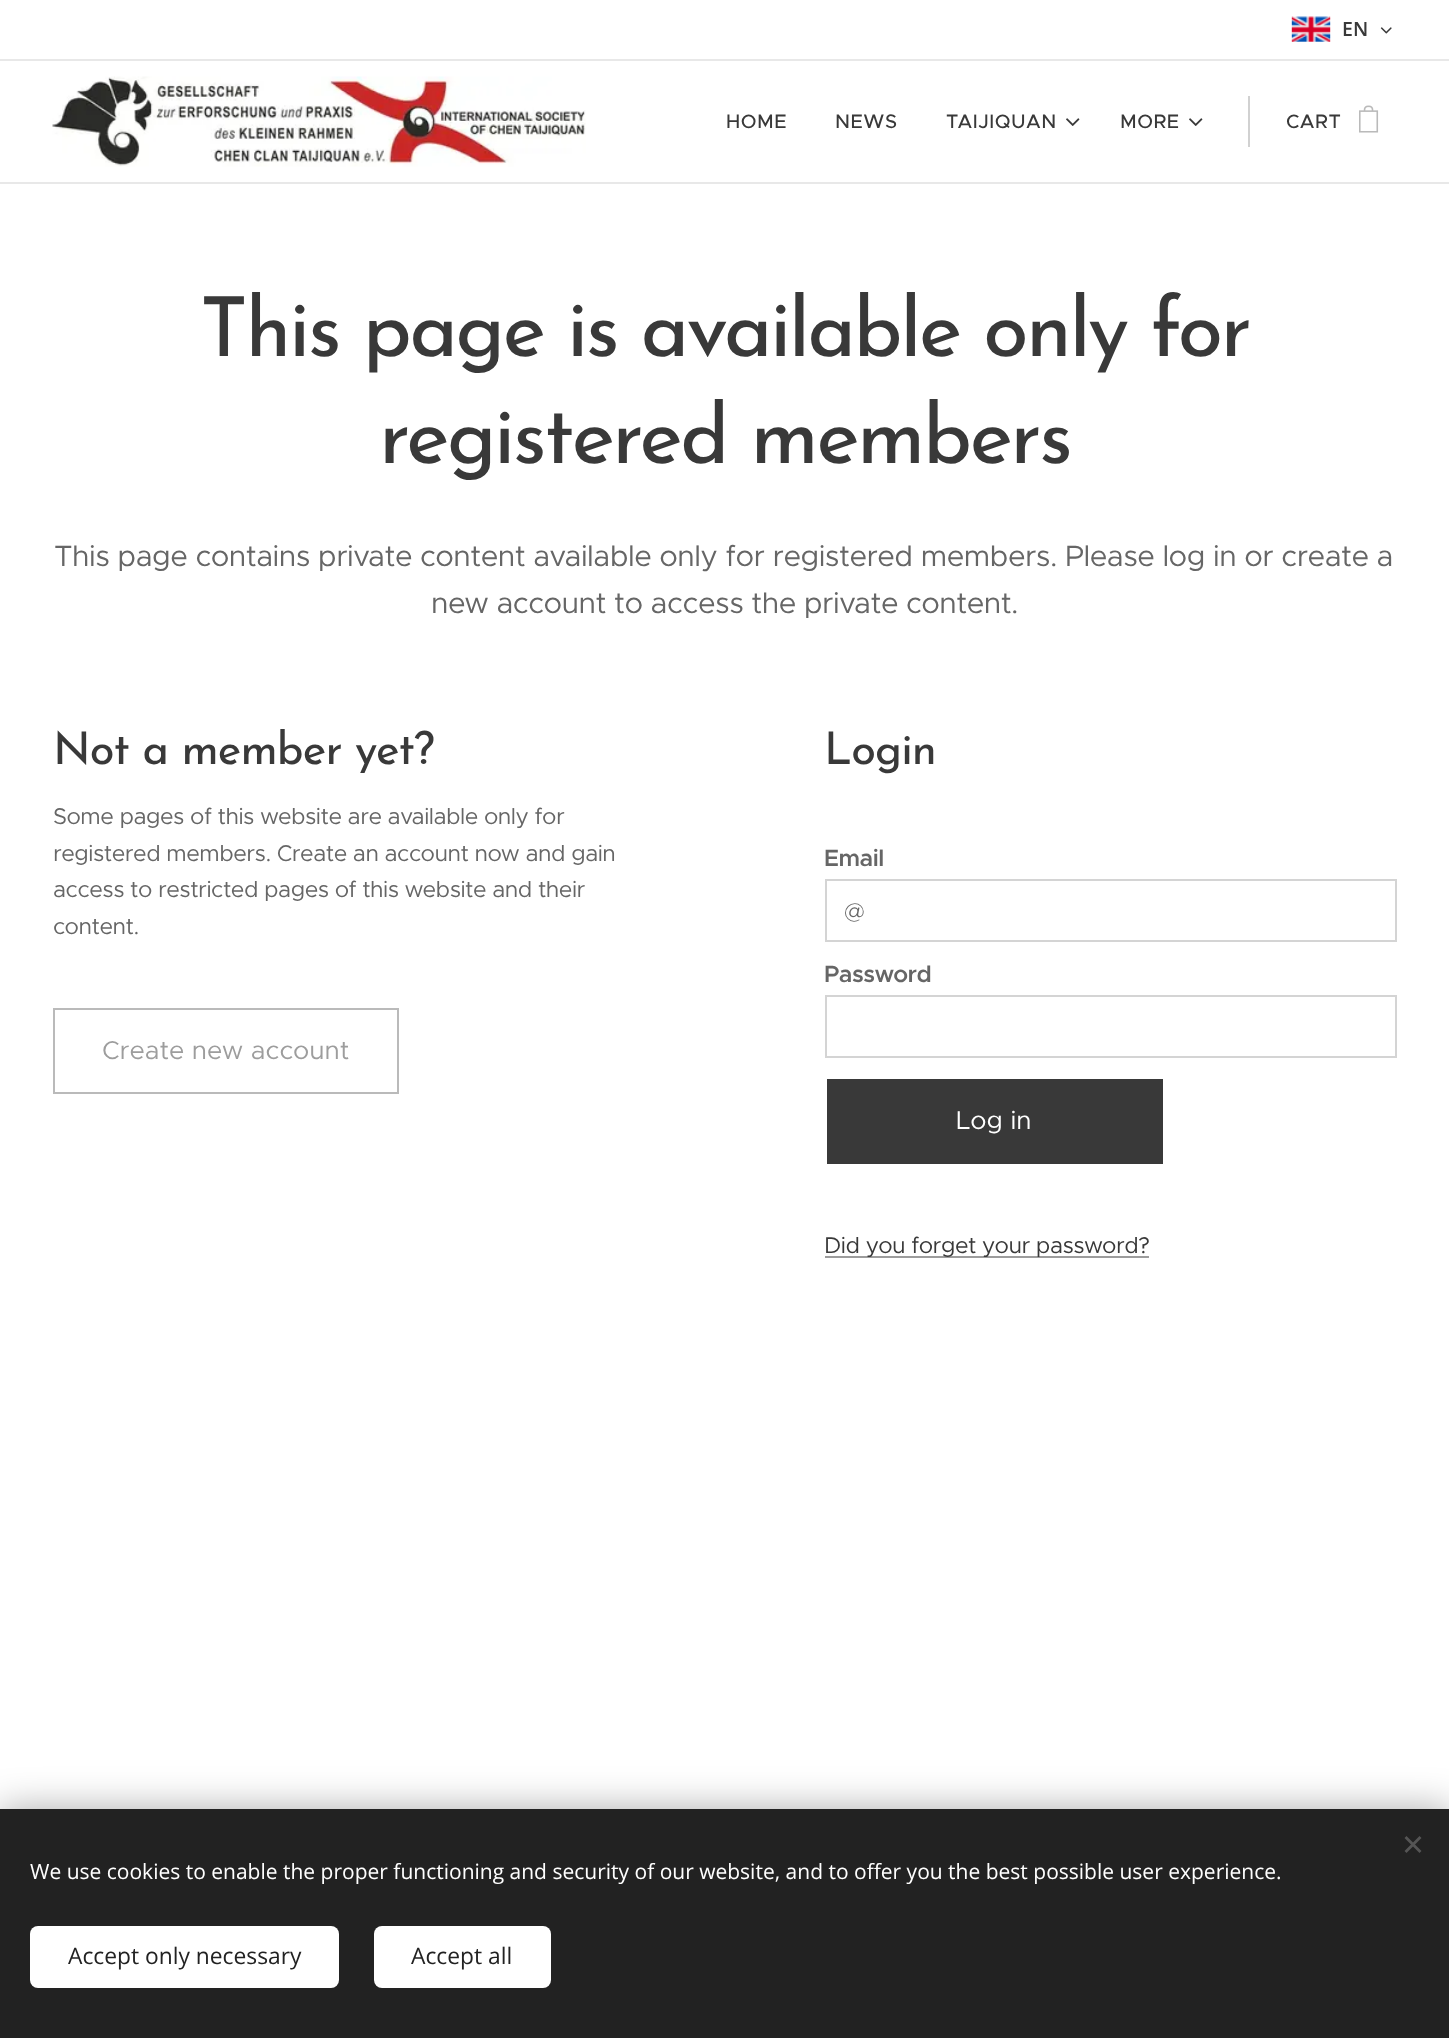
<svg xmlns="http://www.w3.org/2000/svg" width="1449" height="2038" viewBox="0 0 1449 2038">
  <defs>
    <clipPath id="clip1"><path d="M845 897h532v29H845z"/></clipPath>
  </defs>
  <rect width="100%" height="100%" fill="#fff"/>
  <image x="1291" y="16" width="40" height="26" href="img/1.png"/>
  <image x="1380" y="27" width="12" height="7" href="img/2.png"/>
  <path d="M0 59h1449v2H0z" fill="#e8e8e8"/>
  <image x="52" y="76" width="534" height="91" href="img/3.png"/>
  <image x="1066" y="118" width="14" height="8" href="img/4.png"/>
  <image x="1189" y="118" width="14" height="8" href="img/4.png"/>
  <path d="M1248 96h2v51H1248z" fill="#d1d1d1"/>
  <image x="1359" y="105" width="20" height="28" href="img/5.png"/>
  <path d="M0 182h1449v2H0z" fill="#e8e8e8"/>
  <path d="M54 1009h344v84H54z" fill="none" stroke="#bababa" stroke-width="2"/>
  <path d="M826 880h570v61H826z" fill="none" stroke="#d4d4d4" stroke-width="2"/>
  <path d="M826 996h570v61H826z" fill="none" stroke="#d4d4d4" stroke-width="2"/>
  <path d="M827 1079h336v85H827z" fill="#393939"/>
  <path d="M825 1256h324v2H825z" fill="#9c9c9c"/>
  <path d="M0 1809h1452v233H0z" fill="#00000054" filter="blur(19px)"/>
  <path d="M0 1809h1449v229H0z" fill="#222"/>
  <path d="M1404.5 1851L1419.5 1836L1421.5 1838L1406.5 1853Z" fill="#555"/>
  <path d="M1406.5 1836L1421.5 1851L1419.5 1853L1404.5 1838Z" fill="#555"/>
  <rect x="30" y="1926" width="309" height="62" rx="8" fill="#fff"/>
  <rect x="374" y="1926" width="177" height="62" rx="8" fill="#fff"/>
  <text x="1342" y="36" font-family="Open Sans" font-size="19.5" font-weight="600" fill="#393939">EN</text>
  <g font-family="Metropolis" font-size="19.5" font-weight="500" letter-spacing="0.5" fill="#393939">
    <text x="726" y="128">HOME</text>
    <text x="835" y="128">NEWS</text>
    <text x="946" y="128">TAIJIQUAN</text>
    <text x="1120" y="128">MORE</text>
    <text x="1286" y="128">CART</text>
  </g>
  <g font-family="Josefin Sans" font-size="82.5" letter-spacing="-2.5" fill="#393939">
    <text x="200" y="356">This page is available only for</text>
    <text x="379" y="463">registered members</text>
  </g>
  <g font-family="Metropolis" font-size="29.5" letter-spacing="-0.5" fill="#666">
    <text x="54" y="566">This page contains private content available only for registered members. Please log in or create a</text>
    <text x="431" y="613">new account to access the private content.</text>
  </g>
  <text x="53" y="764" font-family="Josefin Sans" font-size="45" letter-spacing="-0.9" fill="#393939">Not a member yet?</text>
  <g font-family="Metropolis" font-size="22.8" letter-spacing="-0.5" fill="#666">
    <text x="53" y="824">Some pages of this website are available only for</text>
    <text x="53" y="861">registered members. Create an account now and gain</text>
    <text x="53" y="897">access to restricted pages of this website and their</text>
    <text x="53" y="934">content.</text>
  </g>
  <text x="102" y="1059" font-family="Metropolis" font-size="25.75" fill="#9d9d9d">Create new account</text>
  <text x="824" y="764" font-family="Josefin Sans" font-size="45" letter-spacing="-0.9" fill="#393939">Login</text>
  <text x="824" y="866" font-family="Metropolis" font-size="23.5" font-weight="600" letter-spacing="-0.5" fill="#666">Email</text>
  <g clip-path="url(#clip1)">
    <text x="844" y="919" font-family="Metropolis" font-size="23.5" font-weight="300" fill="#666">@</text>
  </g>
  <text x="824" y="982" font-family="Metropolis" font-size="23.5" font-weight="600" letter-spacing="-0.5" fill="#666">Password</text>
  <text x="956" y="1129" font-family="Metropolis" font-size="25.75" fill="#fff">Log in</text>
  <text x="824" y="1253" font-family="Metropolis" font-size="22.8" letter-spacing="-0.5" fill="#393939">Did you forget your password?</text>
  <text x="30" y="1879" font-family="Open Sans" font-size="21" fill="#fff">We use cookies to enable the proper functioning and security of our website, and to offer you the best possible user experience.</text>
  <g font-family="Open Sans" font-size="22.8" fill="#222">
    <text x="68" y="1964">Accept only necessary</text>
    <text x="411" y="1964">Accept all</text>
  </g>
</svg>
